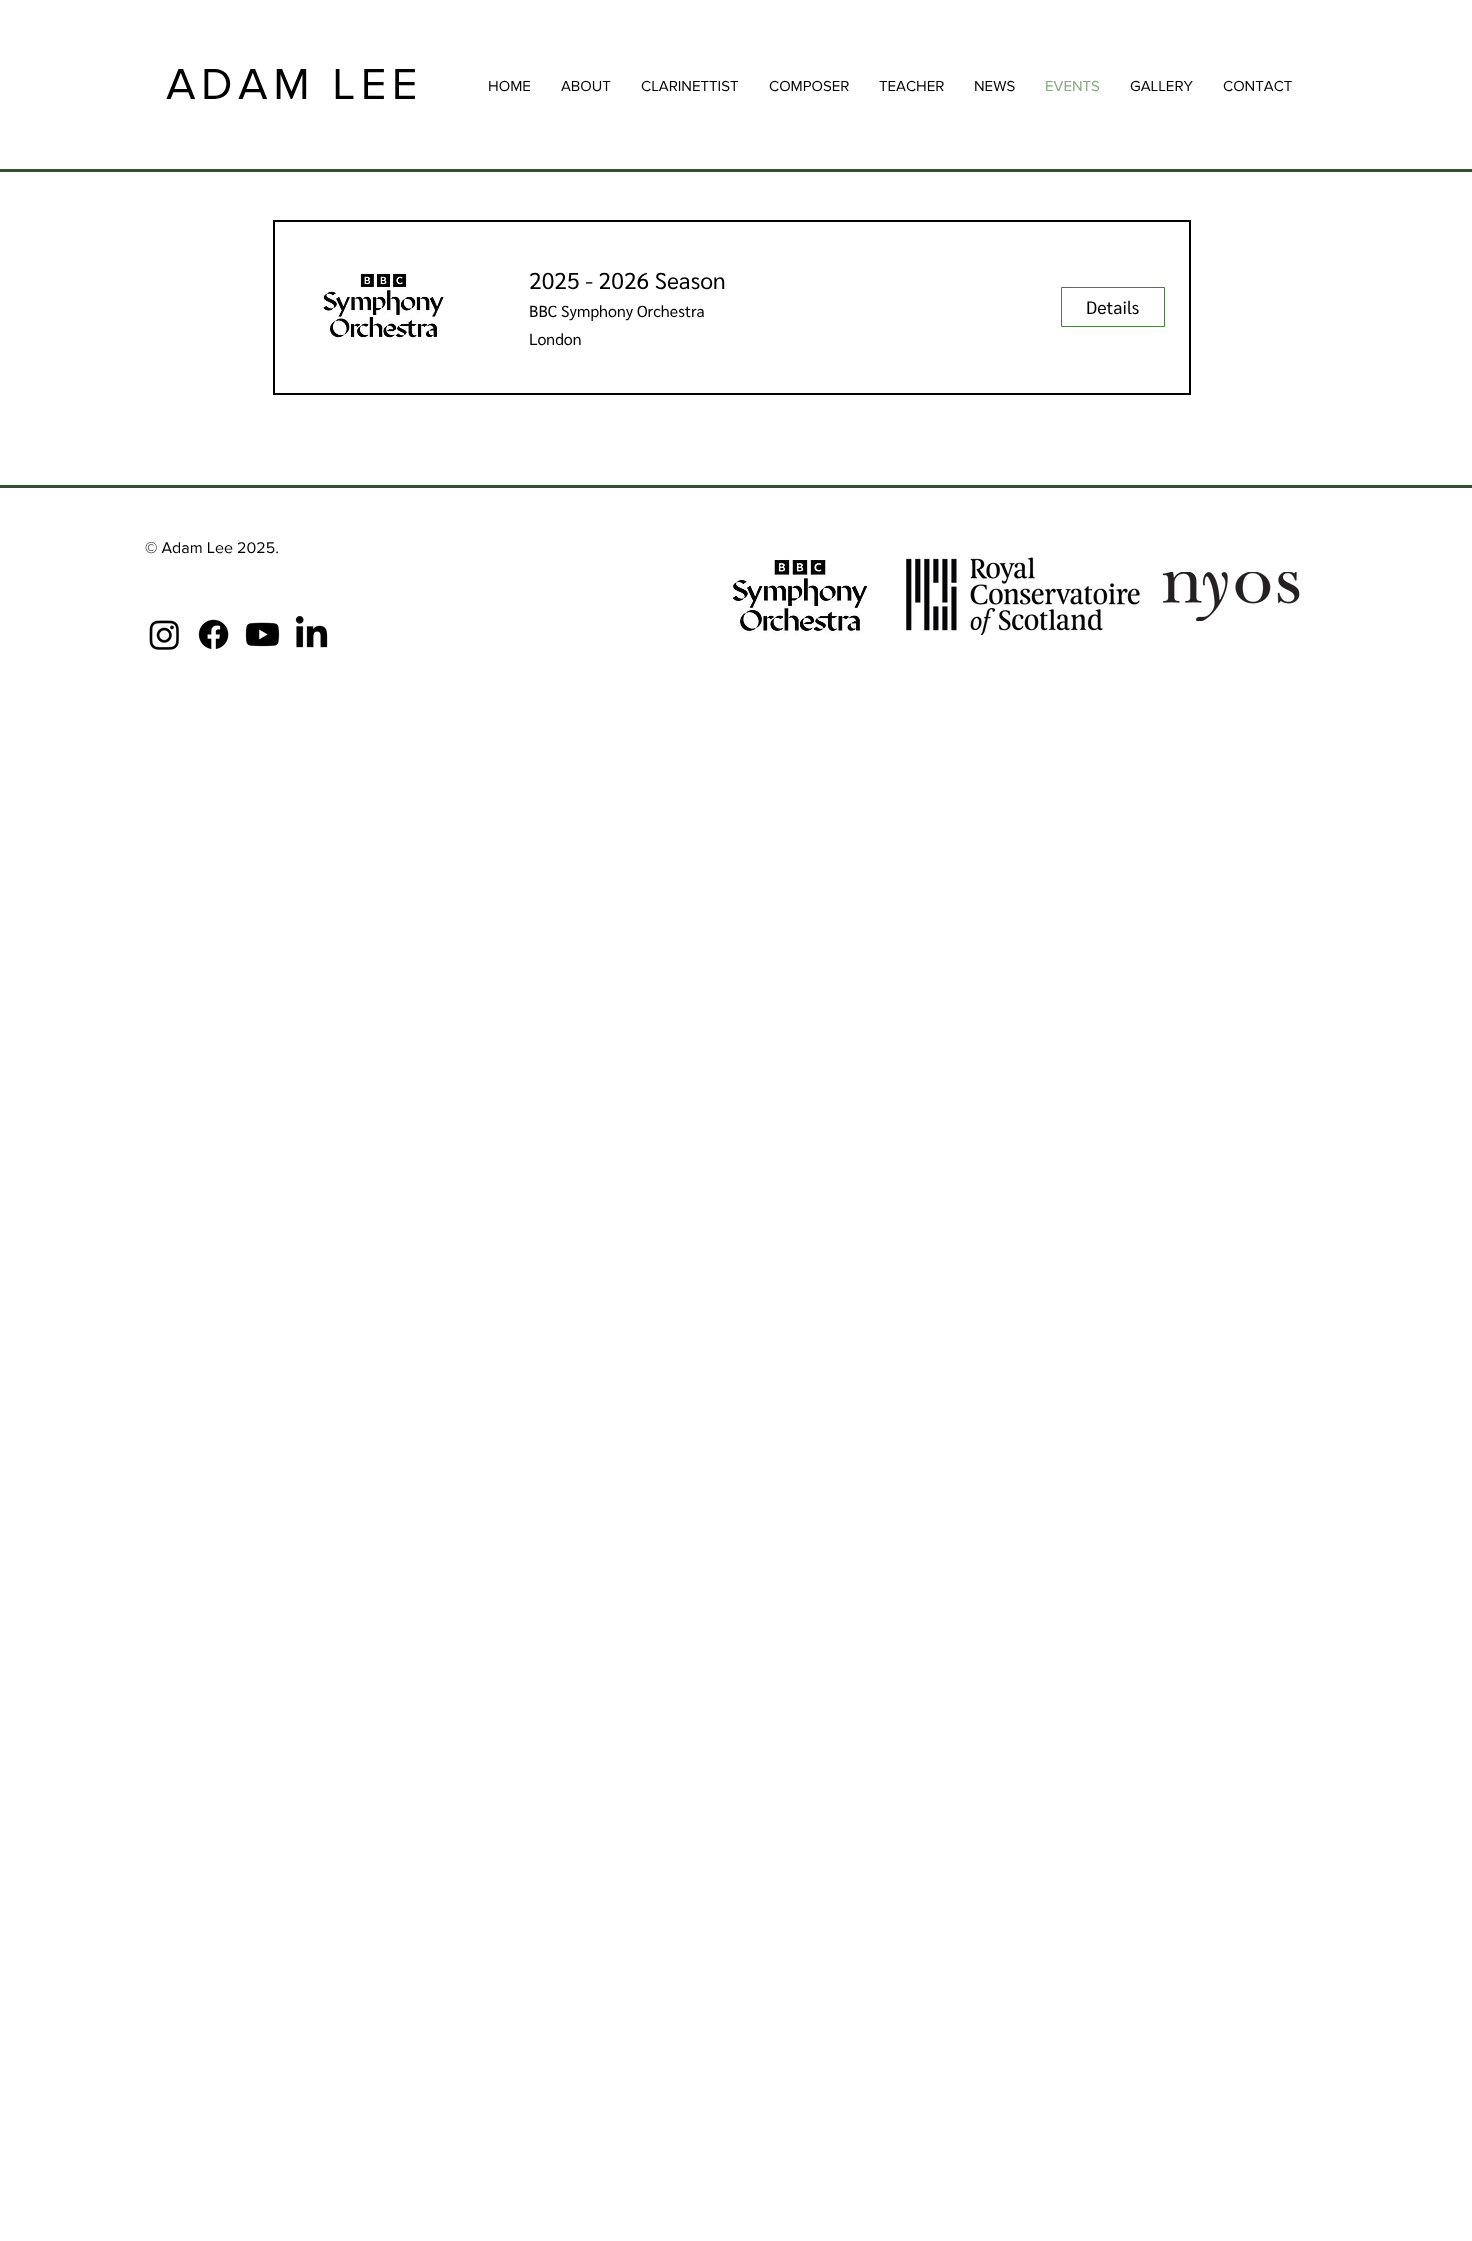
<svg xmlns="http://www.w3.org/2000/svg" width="1472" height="2241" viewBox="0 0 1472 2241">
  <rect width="100%" height="100%" fill="#fff"/>
  <path d="M0 169h1472v3H0z" fill="#33512e"/>
  <path d="M274 221h916v173H274z" fill="none" stroke="#000" stroke-width="2"/>
  <image x="320" y="273" width="124" height="67" href="img/1.png"/>
  <path d="M1061.5 287.5h103v39H1061.5z" fill="none" stroke="#4c7945"/>
  <path d="M0 485h1472v3H0z" fill="#33512e"/>
  <image x="731" y="558" width="136" height="76" href="img/2.png"/>
  <image x="906" y="557" width="234" height="78" href="img/3.png"/>
  <image x="1163" y="572" width="137" height="49" href="img/4.png"/>
  <image x="149" y="620" width="30" height="30" href="img/5.png"/>
  <image x="198" y="619" width="31" height="30" href="img/6.png"/>
  <image x="245" y="622" width="35" height="25" href="img/7.png"/>
  <image x="295" y="615" width="33" height="33" href="img/8.png"/>
  <text x="166" y="99" font-family="'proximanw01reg'" font-size="45" letter-spacing="5.5" fill="#000">ADAM LEE</text>
  <g font-family="'proximanw01reg'" font-size="15" fill="#000">
    <text x="488" y="91">HOME</text>
    <text x="561" y="91">ABOUT</text>
    <text x="641" y="91">CLARINETTIST</text>
    <text x="769" y="91">COMPOSER</text>
    <text x="879" y="91">TEACHER</text>
    <text x="974" y="91">NEWS</text>
  </g>
  <text x="1045" y="91" font-family="'proximanw01reg'" font-size="15" fill="#87a682">EVENTS</text>
  <g font-family="'proximanw01reg'" font-size="15" fill="#000">
    <text x="1130" y="91">GALLERY</text>
    <text x="1223" y="91">CONTACT</text>
  </g>
  <text x="529" y="289" font-family="Sarabun" font-size="23" fill="#000">2025 - 2026 Season</text>
  <g font-family="Sarabun" font-size="16" fill="#000">
    <text x="529" y="317">BBC Symphony Orchestra</text>
    <text x="529" y="345">London</text>
  </g>
  <text x="1086" y="314" font-family="Sarabun" font-size="18" fill="#000">Details</text>
  <text x="145" y="553" font-family="'proximanw01reg'" font-size="16" fill="#000">© Adam Lee 2025.</text>
</svg>
